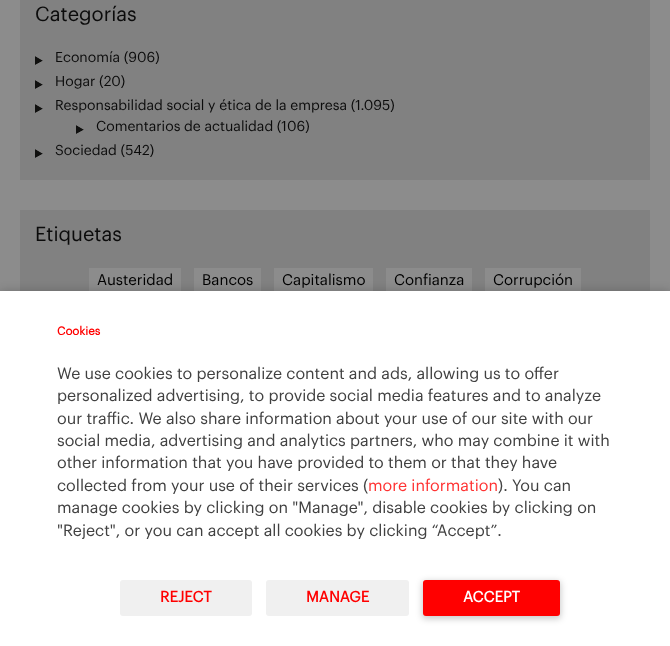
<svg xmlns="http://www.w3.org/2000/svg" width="670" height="646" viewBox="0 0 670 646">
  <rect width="100%" height="100%" fill="#8c8c8c"/>
  <path d="M20 0h630v180H20z" fill="#818181"/>
  <image x="35" y="56" width="8" height="9" href="img/1.png"/>
  <image x="35" y="80" width="8" height="9" href="img/1.png"/>
  <image x="35" y="104" width="8" height="9" href="img/1.png"/>
  <image x="76" y="125" width="8" height="9" href="img/1.png"/>
  <image x="35" y="149" width="8" height="9" href="img/1.png"/>
  <path d="M20 210h630v81H20z" fill="#818181"/>
  <path d="M89 268h92v23H89z" fill="#8c8c8c"/>
  <path d="M194 268h67v23H194z" fill="#8c8c8c"/>
  <path d="M274 268h99v23H274z" fill="#8c8c8c"/>
  <path d="M386 268h86v23H386z" fill="#8c8c8c"/>
  <path d="M485 268h96v23H485z" fill="#8c8c8c"/>
  <path d="M0 291h670v355H0z" fill="#00000033" filter="blur(5px)"/>
  <path d="M0 291h670v355H0z" fill="#fff"/>
  <rect x="120" y="580" width="132" height="36" rx="3" fill="#f0f0f0"/>
  <rect x="266" y="580" width="143" height="36" rx="3" fill="#f0f0f0"/>
  <rect x="422" y="581" width="139" height="38" rx="4" fill="#00000033" filter="blur(3px)"/>
  <rect x="423" y="580" width="137" height="36" rx="3" fill="#f00"/>
  <text x="35" y="21" font-family="Graphik" font-size="20" fill="#0b0b0b">Categorías</text>
  <g font-family="Graphik" font-size="14" fill="#0b0b0b">
    <text x="55" y="62">Economía (906)</text>
    <text x="55" y="86">Hogar (20)</text>
    <text x="55" y="110">Responsabilidad social y ética de la empresa (1.095)</text>
    <text x="96" y="131">Comentarios de actualidad (106)</text>
    <text x="55" y="155">Sociedad (542)</text>
  </g>
  <text x="35" y="241" font-family="Graphik" font-size="20" fill="#0b0b0b">Etiquetas</text>
  <g font-family="Graphik" font-size="15" fill="#000">
    <text x="97" y="285">Austeridad</text>
    <text x="202" y="285">Bancos</text>
    <text x="282" y="285">Capitalismo</text>
    <text x="394" y="285">Confianza</text>
    <text x="493" y="285">Corrupción</text>
  </g>
  <text x="57" y="335" font-family="Graphik" font-size="11.5" font-weight="bold" fill="#f00">Cookies</text>
  <g font-family="Graphik" font-size="16" fill="#414141">
    <text x="57" y="379">We use cookies to personalize content and ads, allowing us to offer</text>
    <text x="57" y="401">personalized advertising, to provide social media features and to analyze</text>
    <text x="57" y="424">our traffic. We also share information about your use of our site with our</text>
    <text x="57" y="446">social media, advertising and analytics partners, who may combine it with</text>
    <text x="57" y="468">other information that you have provided to them or that they have</text>
    <text x="57" y="491">collected from your use of their services (</text>
  </g>
  <text x="368" y="491" font-family="Graphik" font-size="16" fill="#f33">more information</text>
  <g font-family="Graphik" font-size="16" fill="#414141">
    <text x="498" y="491">). You can</text>
    <text x="57" y="513">manage cookies by clicking on "Manage", disable cookies by clicking on</text>
    <text x="57" y="536">"Reject", or you can accept all cookies by clicking “Accept”.</text>
  </g>
  <g font-family="Graphik" font-size="15" font-weight="bold" fill="#f00">
    <text x="160" y="602">REJECT</text>
    <text x="306" y="602">MANAGE</text>
  </g>
  <text x="463" y="602" font-family="Graphik" font-size="15" font-weight="bold" fill="#fff">ACCEPT</text>
</svg>
